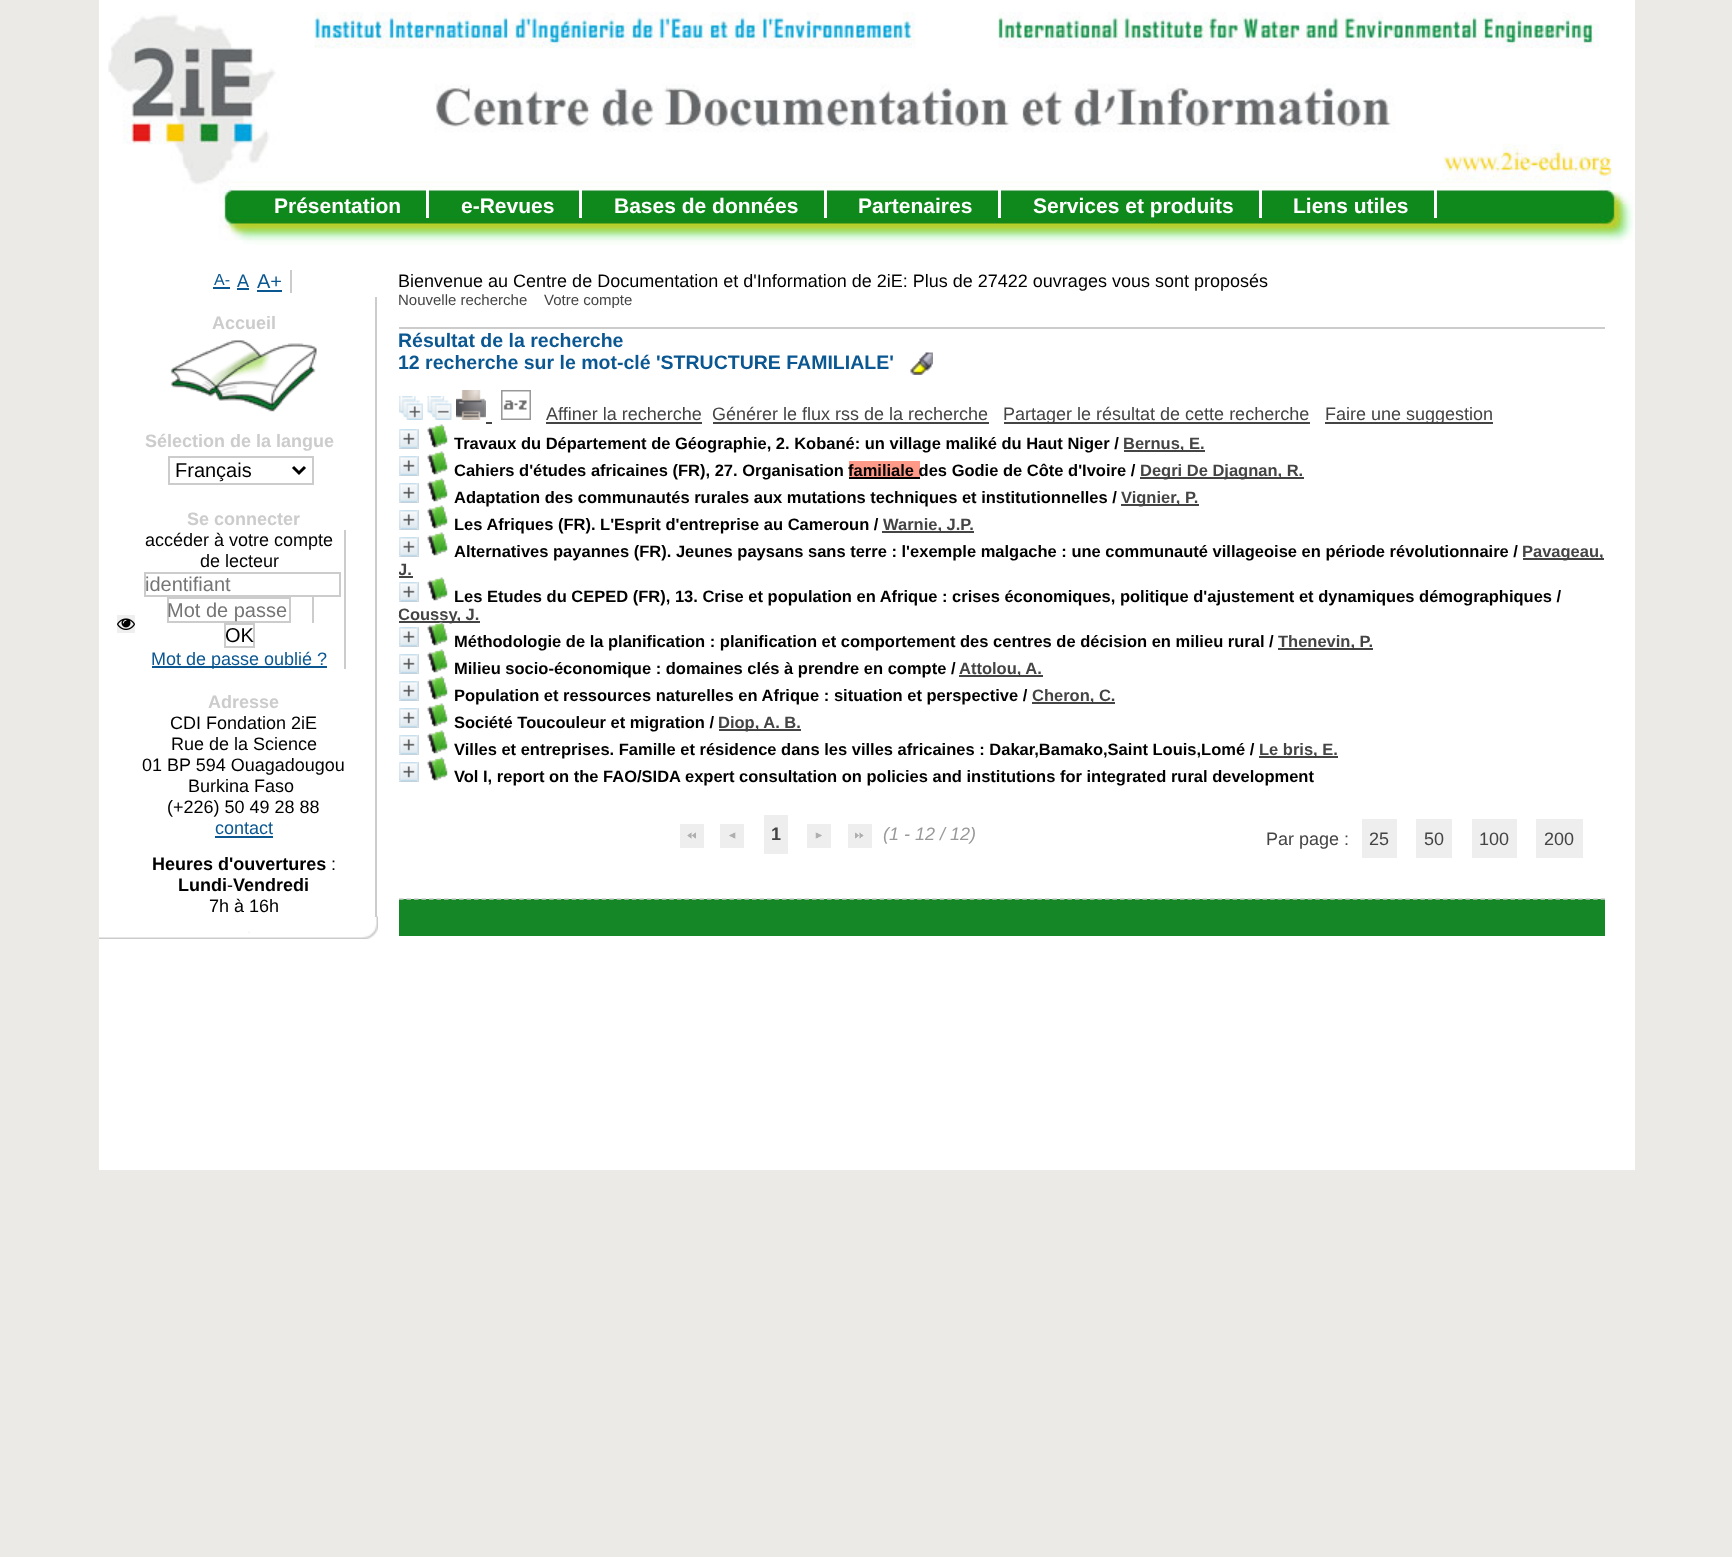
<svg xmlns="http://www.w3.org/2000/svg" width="1732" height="1557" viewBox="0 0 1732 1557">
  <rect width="100%" height="100%" fill="#ebeae6"/>
  <path d="M99 0h1536v1170H99z" fill="#fff"/>
  <image x="99" y="916" width="279" height="23" href="img/1.png"/>
  <path d="M290 270h2v23H290z" fill="#ccc"/>
  <path d="M213 287h17v2H213z" fill="#0b5791"/>
  <path d="M237 288h12v2H237z" fill="#0b5791"/>
  <path d="M257 290h25v2H257z" fill="#0b5791"/>
  <path d="M375 297h2v620H375z" fill="#ccc"/>
  <image x="170" y="340" width="147" height="72" href="img/2.png"/>
  <path d="M169 457h144v27H169z" fill="none" stroke="#ccc" stroke-width="2"/>
  <path d="M293 467L299 473L305 467" fill="none" stroke="#000" stroke-width="3"/>
  <path d="M344 530h2v139H344z" fill="#ccc"/>
  <path d="M145 573h195v23H145z" fill="none" stroke="#ccc" stroke-width="2"/>
  <path d="M312 597h2v26H312z" fill="#ccc"/>
  <path d="M168 598h122v24H168z" fill="none" stroke="#ccc" stroke-width="2"/>
  <path d="M117 615h18v18H117z" fill="#efefef"/>
  <image x="117" y="618" width="18" height="12" href="img/3.png"/>
  <path d="M225 624h29v23H225z" fill="none" stroke="#ccc" stroke-width="2"/>
  <path d="M152 666h175v2H152z" fill="#0b5791"/>
  <path d="M215 836h58v2H215z" fill="#0b5791"/>
  <image x="108" y="12" width="1527" height="233" href="img/4.png"/>
  <path d="M426 189h3v29H426z" fill="#fff"/>
  <path d="M579 189h3v29H579z" fill="#fff"/>
  <path d="M824 189h3v29H824z" fill="#fff"/>
  <path d="M998 189h3v29H998z" fill="#fff"/>
  <path d="M1259 189h3v29H1259z" fill="#fff"/>
  <path d="M1434 189h3v29H1434z" fill="#fff"/>
  <path d="M399 327h1206v2H399z" fill="#ccc"/>
  <image x="910" y="352" width="23" height="23" href="img/5.png"/>
  <image x="399" y="396" width="24" height="24" href="img/6.png"/>
  <image x="427" y="396" width="25" height="24" href="img/7.png"/>
  <image x="456" y="390" width="30" height="30" href="img/8.png"/>
  <path d="M486 422h6v2H486z" fill="#444"/>
  <image x="501" y="390" width="30" height="30" href="img/9.png"/>
  <path d="M546 422h156v2H546z" fill="#444"/>
  <path d="M713 422h276v2H713z" fill="#444"/>
  <path d="M1004 422h306v2H1004z" fill="#444"/>
  <path d="M1325 422h168v2H1325z" fill="#444"/>
  <path d="M399 429h20v20H399z" fill="#ccc"/>
  <image x="427" y="424" width="21" height="24" href="img/10.png"/>
  <image x="399" y="429" width="20" height="20" href="img/11.png"/>
  <path d="M1124 450h81v2H1124z" fill="#444"/>
  <path d="M399 456h20v20H399z" fill="#ccc"/>
  <image x="427" y="451" width="21" height="24" href="img/10.png"/>
  <image x="399" y="456" width="20" height="20" href="img/11.png"/>
  <path d="M849 461h71v16H849z" fill="#f98"/>
  <path d="M849 477h71v2H849z" fill="#000"/>
  <path d="M1140 477h164v2H1140z" fill="#444"/>
  <path d="M399 483h20v20H399z" fill="#ccc"/>
  <image x="427" y="478" width="21" height="24" href="img/10.png"/>
  <image x="399" y="483" width="20" height="20" href="img/11.png"/>
  <path d="M1121 504h78v2H1121z" fill="#444"/>
  <path d="M399 510h20v20H399z" fill="#ccc"/>
  <image x="427" y="505" width="21" height="24" href="img/10.png"/>
  <image x="399" y="510" width="20" height="20" href="img/11.png"/>
  <path d="M882 531h92v2H882z" fill="#444"/>
  <path d="M399 537h20v20H399z" fill="#ccc"/>
  <image x="427" y="532" width="21" height="24" href="img/10.png"/>
  <image x="399" y="537" width="20" height="20" href="img/11.png"/>
  <path d="M1523 558h81v2H1523z" fill="#444"/>
  <path d="M399 576h14v2H399z" fill="#444"/>
  <path d="M399 582h20v20H399z" fill="#ccc"/>
  <image x="427" y="577" width="21" height="24" href="img/10.png"/>
  <image x="399" y="582" width="20" height="20" href="img/11.png"/>
  <path d="M399 621h81v2H399z" fill="#444"/>
  <path d="M399 627h20v20H399z" fill="#ccc"/>
  <image x="399" y="627" width="20" height="20" href="img/11.png"/>
  <path d="M1278 648h95v2H1278z" fill="#444"/>
  <path d="M399 654h20v20H399z" fill="#ccc"/>
  <image x="427" y="649" width="21" height="24" href="img/10.png"/>
  <image x="399" y="654" width="20" height="20" href="img/11.png"/>
  <path d="M959 675h84v2H959z" fill="#444"/>
  <path d="M399 681h20v20H399z" fill="#ccc"/>
  <image x="427" y="676" width="21" height="24" href="img/10.png"/>
  <image x="399" y="681" width="20" height="20" href="img/11.png"/>
  <path d="M1032 702h83v2H1032z" fill="#444"/>
  <path d="M399 708h20v20H399z" fill="#ccc"/>
  <image x="427" y="703" width="21" height="24" href="img/10.png"/>
  <image x="399" y="708" width="20" height="20" href="img/11.png"/>
  <path d="M719 729h82v2H719z" fill="#444"/>
  <path d="M399 735h20v20H399z" fill="#ccc"/>
  <image x="427" y="730" width="21" height="24" href="img/10.png"/>
  <image x="399" y="735" width="20" height="20" href="img/11.png"/>
  <path d="M1259 756h79v2H1259z" fill="#444"/>
  <path d="M399 762h20v20H399z" fill="#ccc"/>
  <image x="427" y="757" width="21" height="24" href="img/10.png"/>
  <image x="399" y="762" width="20" height="20" href="img/11.png"/>
  <path d="M680 824h24v24H680z" fill="#eee"/>
  <image x="687" y="832" width="9" height="7" href="img/13.png"/>
  <path d="M720 824h24v24H720z" fill="#eee"/>
  <image x="729" y="832" width="7" height="7" href="img/14.png"/>
  <path d="M764 815h24v39H764z" fill="#eee"/>
  <path d="M807 824h24v24H807z" fill="#eee"/>
  <image x="815" y="832" width="7" height="7" href="img/15.png"/>
  <path d="M848 824h24v24H848z" fill="#eee"/>
  <image x="855" y="832" width="9" height="7" href="img/16.png"/>
  <path d="M1362 819h35v39H1362z" fill="#eee"/>
  <path d="M1416 819h36v39H1416z" fill="#eee"/>
  <path d="M1472 819h45v39H1472z" fill="#eee"/>
  <path d="M1536 819h47v39H1536z" fill="#eee"/>
  <path d="M399 899h1206v37H399z" fill="#158727"/>
  <path d="M399 899H1605" fill="none" stroke="#ccc" stroke-width="1.5" stroke-dasharray="4.5 3.01"/>
  <text x="214" y="285" font-family="Liberation Sans" font-size="16" fill="#0b5791">A-</text>
  <text x="237" y="287" font-family="Liberation Sans" font-size="18" fill="#0b5791">A</text>
  <text x="257" y="288" font-family="Liberation Sans" font-size="20" fill="#0b5791">A+</text>
  <g font-family="Liberation Sans" font-size="18" font-weight="bold" fill="#ccc">
    <text x="212" y="329">Accueil</text>
    <text x="145" y="447">Sélection de la langue</text>
  </g>
  <text x="175" y="477" font-family="Liberation Sans" font-size="20" fill="#000">Français</text>
  <text x="187" y="525" font-family="Liberation Sans" font-size="18" font-weight="bold" fill="#ccc">Se connecter</text>
  <g font-family="Liberation Sans" font-size="18" fill="#000">
    <text x="145" y="546">accéder à votre compte</text>
    <text x="200" y="567">de lecteur</text>
  </g>
  <g font-family="Liberation Sans" font-size="20" fill="#757575">
    <text x="145" y="591">identifiant</text>
    <text x="167" y="617">Mot de passe</text>
  </g>
  <text x="225" y="642" font-family="Liberation Sans" font-size="20" fill="#000">OK</text>
  <text x="151" y="665" font-family="Liberation Sans" font-size="18" fill="#0b5791">Mot de passe oublié ?</text>
  <text x="208" y="708" font-family="Liberation Sans" font-size="18" font-weight="bold" fill="#ccc">Adresse</text>
  <g font-family="Liberation Sans" font-size="18" fill="#000">
    <text x="170" y="729">CDI Fondation 2iE</text>
    <text x="171" y="750">Rue de la Science</text>
    <text x="142" y="771">01 BP 594 Ouagadougou</text>
    <text x="188" y="792">Burkina Faso</text>
    <text x="167" y="813">(+226) 50 49 28 88</text>
  </g>
  <text x="215" y="834" font-family="Liberation Sans" font-size="18" fill="#0b5791">contact</text>
  <text x="152" y="870" font-family="Liberation Sans" font-size="18" font-weight="bold" fill="#000">Heures d'ouvertures</text>
  <text x="331" y="870" font-family="Liberation Sans" font-size="18" fill="#000">:</text>
  <text x="178" y="891" font-family="Liberation Sans" font-size="18" font-weight="bold" fill="#000">Lundi</text>
  <text x="227" y="891" font-family="Liberation Sans" font-size="18" fill="#000">-</text>
  <text x="233" y="891" font-family="Liberation Sans" font-size="18" font-weight="bold" fill="#000">Vendredi</text>
  <text x="209" y="912" font-family="Liberation Sans" font-size="18" fill="#000">7h à 16h</text>
  <g font-family="Liberation Sans" font-size="21" font-weight="bold" fill="#fff">
    <text x="274" y="213">Présentation</text>
    <text x="461" y="213">e-Revues</text>
    <text x="614" y="213">Bases de données</text>
    <text x="858" y="213">Partenaires</text>
    <text x="1033" y="213">Services et produits</text>
    <text x="1293" y="213">Liens utiles</text>
  </g>
  <g font-family="Liberation Sans" font-size="15" fill="#444">
    <text x="398" y="305">Nouvelle recherche</text>
    <text x="544" y="305">Votre compte</text>
  </g>
  <g font-family="Liberation Sans" font-size="19.5" font-weight="bold" fill="#0b5791">
    <text x="398" y="347">Résultat de la recherche</text>
    <text x="398" y="369">12 recherche sur le mot-clé 'STRUCTURE FAMILIALE'</text>
  </g>
  <g font-family="Liberation Sans" font-size="18" fill="#444">
    <text x="546" y="420">Affiner la recherche</text>
    <text x="712" y="420">Générer le flux rss de la recherche</text>
    <text x="1003" y="420">Partager le résultat de cette recherche</text>
    <text x="1325" y="420">Faire une suggestion</text>
  </g>
  <text x="454" y="449" font-family="Liberation Sans" font-size="16.5" font-weight="bold" fill="#000">Travaux du Département de Géographie, 2. Kobané: un village maliké du Haut Niger /</text>
  <text x="1123" y="449" font-family="Liberation Sans" font-size="16.5" font-weight="bold" fill="#444">Bernus, E.</text>
  <g font-family="Liberation Sans" font-size="16.5" font-weight="bold" fill="#000">
    <text x="454" y="476">Cahiers d'études africaines (FR), 27. Organisation</text>
    <text x="848" y="476">familiale des Godie de Côte d'Ivoire /</text>
  </g>
  <text x="1140" y="476" font-family="Liberation Sans" font-size="16.5" font-weight="bold" fill="#444">Degri De Djagnan, R.</text>
  <text x="454" y="503" font-family="Liberation Sans" font-size="16.5" font-weight="bold" fill="#000">Adaptation des communautés rurales aux mutations techniques et institutionnelles /</text>
  <text x="1121" y="503" font-family="Liberation Sans" font-size="16.5" font-weight="bold" fill="#444">Vignier, P.</text>
  <text x="454" y="530" font-family="Liberation Sans" font-size="16.5" font-weight="bold" fill="#000">Les Afriques (FR). L'Esprit d'entreprise au Cameroun /</text>
  <text x="883" y="530" font-family="Liberation Sans" font-size="16.5" font-weight="bold" fill="#444">Warnie, J.P.</text>
  <text x="454" y="557" font-family="Liberation Sans" font-size="16.5" font-weight="bold" fill="#000">Alternatives payannes (FR). Jeunes paysans sans terre : l'exemple malgache : une communauté villageoise en période révolutionnaire /</text>
  <g font-family="Liberation Sans" font-size="16.5" font-weight="bold" fill="#444">
    <text x="1522" y="557">Pavageau,</text>
    <text x="398" y="575">J.</text>
  </g>
  <text x="454" y="602" font-family="Liberation Sans" font-size="16.5" font-weight="bold" fill="#000">Les Etudes du CEPED (FR), 13. Crise et population en Afrique : crises économiques, politique d'ajustement et dynamiques démographiques /</text>
  <text x="398" y="620" font-family="Liberation Sans" font-size="16.5" font-weight="bold" fill="#444">Coussy, J.</text>
  <path d="M398 571h1v44H398z" fill="#fff"/>
  <image x="427" y="622" width="21" height="24" href="img/12.png"/>
  <text x="454" y="647" font-family="Liberation Sans" font-size="16.5" font-weight="bold" fill="#000">Méthodologie de la planification : planification et comportement des centres de décision en milieu rural /</text>
  <text x="1278" y="647" font-family="Liberation Sans" font-size="16.5" font-weight="bold" fill="#444">Thenevin, P.</text>
  <text x="454" y="674" font-family="Liberation Sans" font-size="16.5" font-weight="bold" fill="#000">Milieu socio-économique : domaines clés à prendre en compte /</text>
  <text x="959" y="674" font-family="Liberation Sans" font-size="16.5" font-weight="bold" fill="#444">Attolou, A.</text>
  <text x="454" y="701" font-family="Liberation Sans" font-size="16.5" font-weight="bold" fill="#000">Population et ressources naturelles en Afrique : situation et perspective /</text>
  <text x="1032" y="701" font-family="Liberation Sans" font-size="16.5" font-weight="bold" fill="#444">Cheron, C.</text>
  <text x="454" y="728" font-family="Liberation Sans" font-size="16.5" font-weight="bold" fill="#000">Société Toucouleur et migration /</text>
  <text x="718" y="728" font-family="Liberation Sans" font-size="16.5" font-weight="bold" fill="#444">Diop, A. B.</text>
  <text x="454" y="755" font-family="Liberation Sans" font-size="16.5" font-weight="bold" fill="#000">Villes et entreprises. Famille et résidence dans les villes africaines : Dakar,Bamako,Saint Louis,Lomé /</text>
  <text x="1259" y="755" font-family="Liberation Sans" font-size="16.5" font-weight="bold" fill="#444">Le bris, E.</text>
  <text x="454" y="782" font-family="Liberation Sans" font-size="16.5" font-weight="bold" fill="#000">Vol I, report on the FAO/SIDA expert consultation on policies and institutions for integrated rural development</text>
  <text x="771" y="840" font-family="Liberation Sans" font-size="18" font-weight="bold" fill="#444">1</text>
  <text x="883" y="840" font-family="Liberation Sans" font-size="18" font-style="italic" fill="#999">(1 - 12 / 12)</text>
  <g font-family="Liberation Sans" font-size="18" fill="#444">
    <text x="1266" y="845">Par page :</text>
    <text x="1369" y="845">25</text>
    <text x="1424" y="845">50</text>
    <text x="1479" y="845">100</text>
    <text x="1544" y="845">200</text>
  </g>
  <text x="398" y="287" font-family="Liberation Sans" font-size="18" fill="#000">Bienvenue au Centre de Documentation et d'Information de 2iE: Plus de 27422 ouvrages vous sont proposés</text>
</svg>
